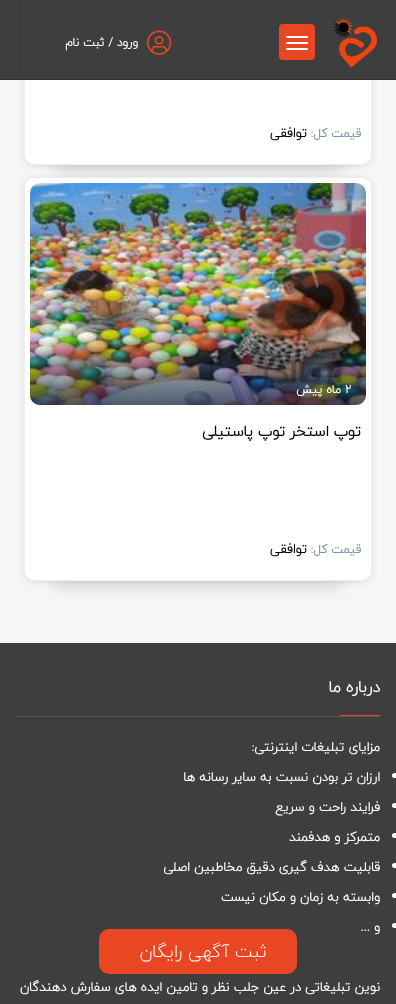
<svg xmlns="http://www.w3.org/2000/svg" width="396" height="1004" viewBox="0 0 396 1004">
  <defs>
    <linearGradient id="g1" gradientUnits="userSpaceOnUse" x1="198" y1="339" x2="198" y2="438"><stop offset="0" stop-color="#061b41" stop-opacity="0"/><stop offset="1" stop-color="#061b41" stop-opacity="0.95"/></linearGradient>
  </defs>
  <rect width="100%" height="100%" fill="#3e3e3e"/>
  <path d="M0 80h396v563H0z" fill="#f6f6f6"/>
  <rect x="24" y="-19" width="348" height="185" rx="10" fill="#0000001a" filter="blur(3px)"/>
  <rect x="45" y="124" width="306" height="50" rx="25" fill="#252c411f" filter="blur(7px)"/>
  <rect x="24.5" y="-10.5" width="347" height="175" rx="9.5" fill="#fff" stroke="#eee"/>
  <path d="M23 0h350v79H23z" fill="#3e3e3e"/>
  <path d="M0 79h396v1H0z" fill="#2f2f2f"/>
  <image x="333" y="18" width="44" height="50" href="img/1.png"/>
  <rect x="279" y="24" width="36" height="36" rx="4" fill="#e94624"/>
  <rect x="286" y="36" width="22" height="2" rx="1" fill="#fff"/>
  <rect x="286" y="42" width="22" height="2" rx="1" fill="#fff"/>
  <rect x="286" y="48" width="22" height="2" rx="1" fill="#fff"/>
  <image x="147" y="30" width="25" height="25" href="img/2.png"/>
  <rect x="24" y="178" width="348" height="404" rx="10" fill="#0000001a" filter="blur(3px)"/>
  <rect x="45" y="540" width="306" height="50" rx="25" fill="#252c411f" filter="blur(7px)"/>
  <rect x="24.5" y="177.5" width="347" height="403" rx="9.5" fill="#fff" stroke="#eee"/>
  <image x="30" y="183" width="336" height="222" href="img/3.png"/>
  <path d="M30 339H366V395C366 400.5 361.5 405 356 405H40C34.5 405 30 400.5 30 395Z" fill="url(#g1)"/>
  <path d="M16 716h364v1H16z" fill="#535353"/>
  <path d="M340 715h40v1H340z" fill="#e94624"/>
  <circle cx="394.5" cy="775.5" r="2.5" fill="#fff"/>
  <circle cx="394.5" cy="805.5" r="2.5" fill="#fff"/>
  <circle cx="394.5" cy="835.5" r="2.5" fill="#fff"/>
  <circle cx="394.5" cy="865.5" r="2.5" fill="#fff"/>
  <circle cx="394.5" cy="895.5" r="2.5" fill="#fff"/>
  <circle cx="394.5" cy="925.5" r="2.5" fill="#fff"/>
  <rect x="99" y="929" width="198" height="45" rx="10" fill="#e94624"/>
  <text x="138" y="46" font-family="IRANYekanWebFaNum" font-size="12" font-weight="bold" direction="rtl" fill="#fff">ورود / ثبت نام</text>
  <text x="361" y="137" font-family="IRANYekanWebFaNum" font-size="12" font-weight="bold" direction="rtl" fill="#7d93b2">قیمت کل:</text>
  <text x="307" y="137" font-family="IRANYekanWebFaNum" font-size="13" font-weight="bold" direction="rtl" fill="#000">توافقی</text>
  <text x="345" y="393" font-family="IRANYekanWebFaNum" font-size="12" font-weight="bold" fill="#fff">2</text>
  <text x="341" y="393" font-family="IRANYekanWebFaNum" font-size="12" font-weight="bold" direction="rtl" fill="#fff">ماه پیش</text>
  <text x="361" y="436" font-family="IRANYekanWebFaNum" font-size="15" font-weight="bold" direction="rtl" fill="#000">توپ استخر توپ پاستیلی</text>
  <text x="361" y="553" font-family="IRANYekanWebFaNum" font-size="12" font-weight="bold" direction="rtl" fill="#7d93b2">قیمت کل:</text>
  <text x="307" y="553" font-family="IRANYekanWebFaNum" font-size="13" font-weight="bold" direction="rtl" fill="#000">توافقی</text>
  <text x="380" y="692" font-family="IRANYekanWebFaNum" font-size="16" font-weight="bold" direction="rtl" fill="#fff">درباره ما</text>
  <g font-family="IRANYekanWebFaNum" font-size="13" font-weight="bold" direction="rtl" fill="#fff">
    <text x="380" y="751">مزایای تبلیغات اینترنتی:</text>
    <text x="380" y="781">ارزان تر بودن نسبت به سایر رسانه ها</text>
    <text x="380" y="811">فرایند راحت و سریع</text>
    <text x="380" y="841">متمرکز و هدفمند</text>
    <text x="380" y="871">قابلیت هدف گیری دقیق مخاطبین اصلی</text>
    <text x="380" y="901">وابسته به زمان و مکان نیست</text>
    <text x="380" y="931">و ...</text>
    <text x="380" y="991">نوین تبلیغاتی در عین جلب نظر و تامین ایده های سفارش دهندگان</text>
  </g>
  <text x="267" y="957" font-family="IRANYekanWebFaNum" font-size="18" font-weight="300" direction="rtl" fill="#fff">ثبت آگهی رایگان</text>
</svg>
